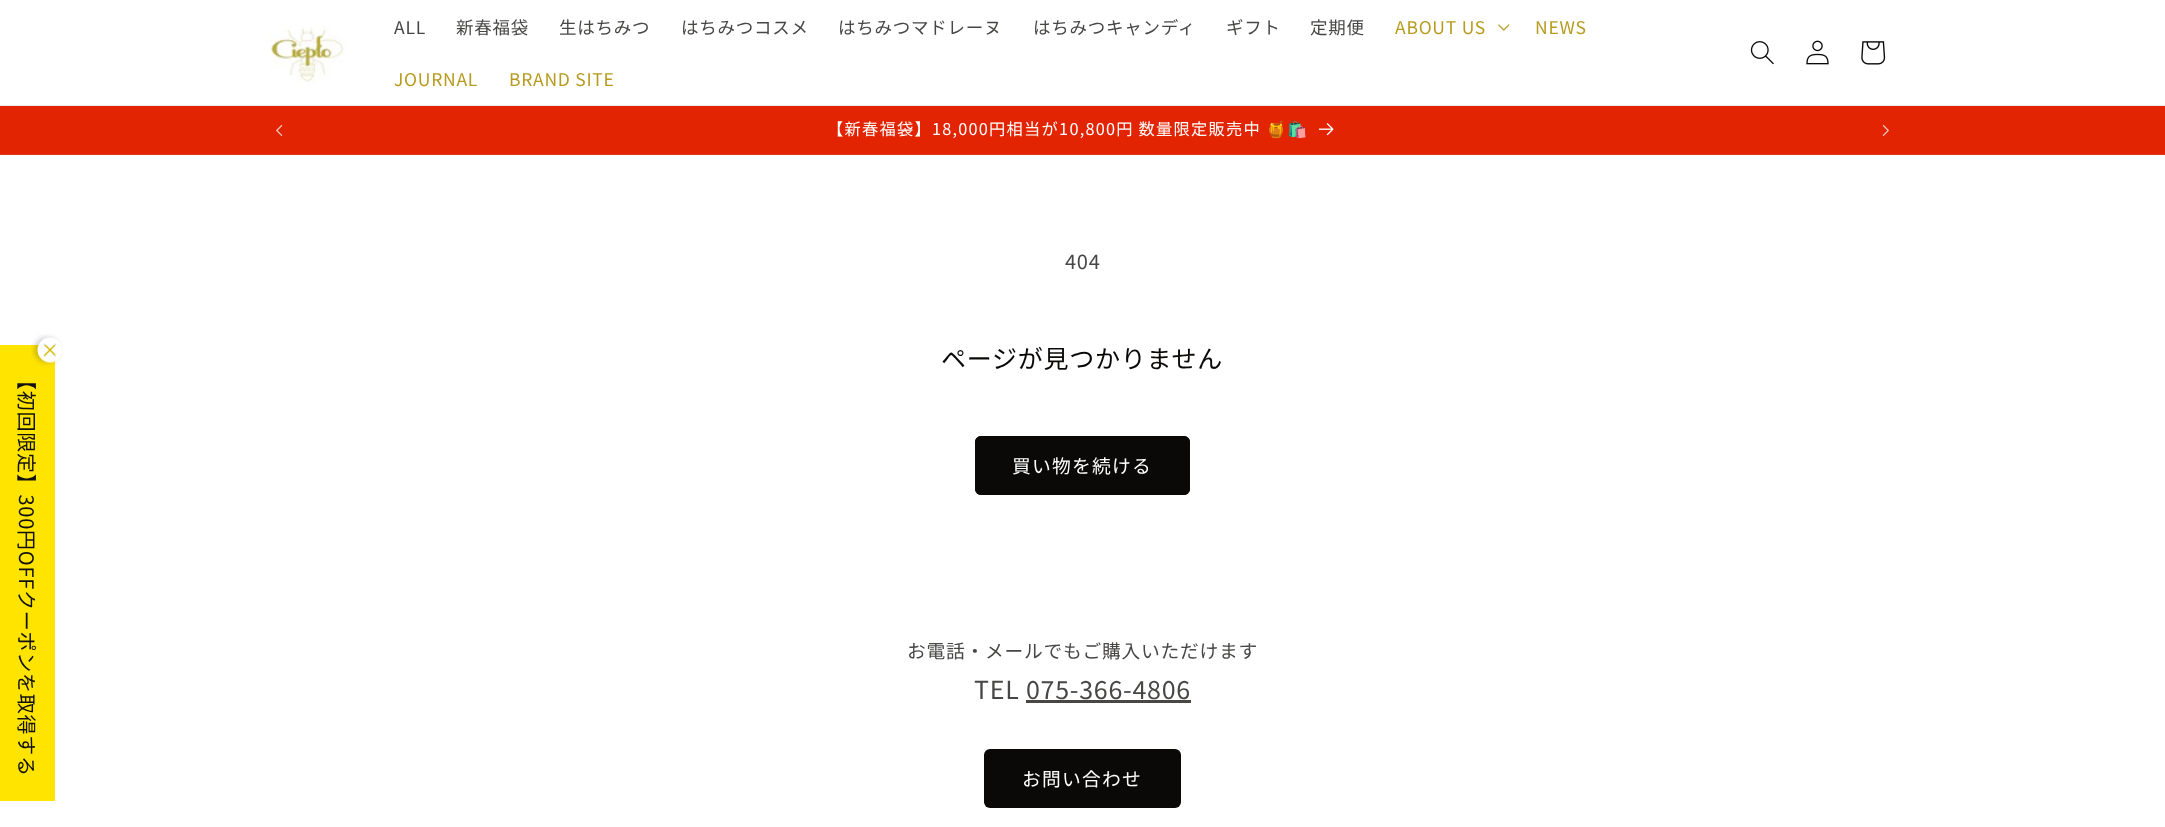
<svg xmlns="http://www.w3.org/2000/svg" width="2165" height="827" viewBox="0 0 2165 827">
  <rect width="100%" height="100%" fill="#fff"/>
  <path d="M0 105h2165v1H0z" fill="#ebebeb"/>
  <image x="270" y="25" width="75" height="60" href="img/1.png"/>
  <image x="1498" y="24" width="12" height="7" href="img/2.png"/>
  <image x="1750" y="41" width="24" height="24" href="img/3.png"/>
  <image x="1806" y="40" width="23" height="25" href="img/4.png"/>
  <image x="1861" y="41" width="25" height="24" href="img/5.png"/>
  <path d="M0 106h2165v48H0z" fill="#e32402"/>
  <path d="M0 154h2165v1H0z" fill="#e53616"/>
  <image x="276" y="124" width="7" height="12" href="img/6.png"/>
  <image x="1319" y="123" width="15" height="13" href="img/7.png"/>
  <image x="1882" y="124" width="7" height="12" href="img/8.png"/>
  <path d="M0 345h55v456H0z" fill="#ffe400"/>
  <image x="31" y="334" width="32" height="32" href="img/9.png"/>
  <rect x="975" y="436" width="215" height="59" rx="6" fill="#0b0908"/>
  <rect x="975.5" y="436.5" width="214" height="58" rx="5.5" fill="none" stroke="#0b0908"/>
  <path d="M1026 700h165v3H1026z" fill="#484746"/>
  <rect x="984" y="749" width="197" height="59" rx="6" fill="#0b0908"/>
  <g font-family="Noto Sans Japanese" font-size="17.5" letter-spacing="0.75" fill="#484746">
    <text x="394" y="34">ALL</text>
    <text x="456" y="34">新春福袋</text>
    <text x="559" y="34">生はちみつ</text>
    <text x="681" y="34">はちみつコスメ</text>
    <text x="838" y="34">はちみつマドレーヌ</text>
    <text x="1033" y="34">はちみつキャンディ</text>
    <text x="1226" y="34">ギフト</text>
    <text x="1310" y="34">定期便</text>
  </g>
  <g font-family="Noto Sans Japanese" font-size="17.5" letter-spacing="0.75" fill="#b79b1e">
    <text x="1395" y="34">ABOUT US</text>
    <text x="1535" y="34">NEWS</text>
    <text x="394" y="86">JOURNAL</text>
    <text x="509" y="86">BRAND SITE</text>
  </g>
  <text x="827" y="135" font-family="Noto Sans Japanese" font-size="16.25" letter-spacing="1.25" fill="#fff">【新春福袋】18,000円相当が10,800円 数量限定販売中</text>
  <text x="1266" y="135" font-family="Noto Color Emoji" font-size="16.25" letter-spacing="1.25" fill="#fff">🍯🛍</text>
  <text x="19" y="370" transform="rotate(90 19 370)" font-family="Noto Sans Japanese" font-size="20" letter-spacing="0.75" fill="#101010">【初回限定】300円OFFクーポンを取得する</text>
  <text x="1065" y="269" font-family="Noto Sans Japanese" font-size="20" letter-spacing="0.75" fill="#484746">404</text>
  <text x="941" y="368" font-family="Noto Sans Japanese" font-size="25" letter-spacing="0.75" fill="#0b0908">ページが見つかりません</text>
  <text x="1012" y="473" font-family="Noto Sans Japanese" font-size="18.75" letter-spacing="1.25" fill="#fff">買い物を続ける</text>
  <text x="907" y="658" font-family="Noto Sans Japanese" font-size="18.75" letter-spacing="0.75" fill="#484746">お電話・メールでもご購入いただけます</text>
  <text x="974" y="699" font-family="Noto Sans Japanese" font-size="25" letter-spacing="0.75" fill="#484746">TEL 075-366-4806</text>
  <text x="1022" y="786" font-family="Noto Sans Japanese" font-size="18.75" letter-spacing="1.25" fill="#fff">お問い合わせ</text>
</svg>
